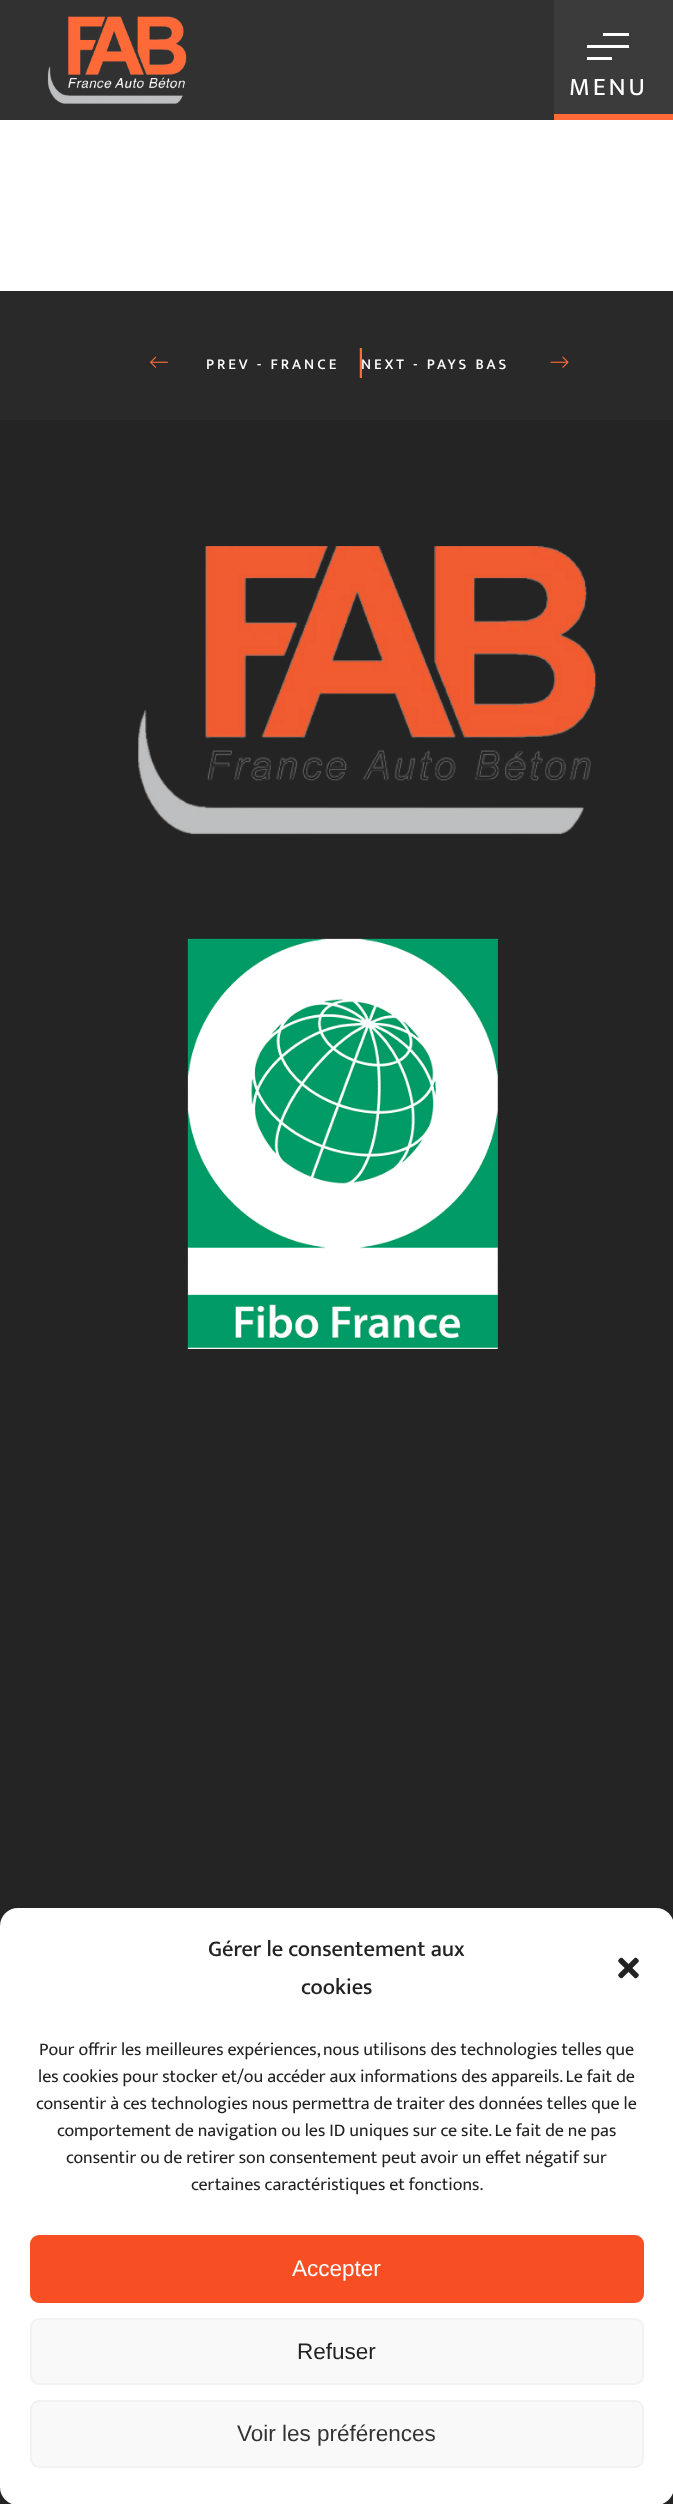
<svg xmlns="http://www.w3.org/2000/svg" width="673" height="2504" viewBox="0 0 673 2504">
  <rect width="100%" height="100%" fill="#313131"/>
  <image x="47" y="16" width="140" height="88" href="img/1.png"/>
  <path d="M554 0h119v114H554z" fill="#3b3b3b"/>
  <path d="M554 114h119v6H554z" fill="#ff6a39"/>
  <path d="M603 33h26v3H603z" fill="#fff"/>
  <path d="M587 45h42v3H587z" fill="#fff"/>
  <path d="M587 57h25v3H587z" fill="#fff"/>
  <path d="M0 120h673v171H0z" fill="#fff"/>
  <path d="M0 291h673v129H0z" fill="#292929"/>
  <image x="150" y="356" width="18" height="12" href="img/2.png"/>
  <path d="M359 348h1v30H359z" fill="#414141"/>
  <image x="550" y="356" width="19" height="12" href="img/3.png"/>
  <path d="M0 420h673v2084H0z" fill="#242424"/>
  <image x="138" y="546" width="458" height="289" href="img/4.png"/>
  <image x="187" y="938" width="311" height="411" href="img/5.png"/>
  <rect y="1908" width="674" height="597" rx="18" fill="#fff"/>
  <image x="618" y="1957" width="21" height="22" href="img/6.png"/>
  <rect x="31" y="2236" width="612" height="66" rx="8" fill="#f74f23" stroke="#f74f23" stroke-width="2"/>
  <rect x="31" y="2319" width="612" height="65" rx="8" fill="#f9f9f9" stroke="#f2f2f2" stroke-width="2"/>
  <rect x="31" y="2401" width="612" height="66" rx="8" fill="#f9f9f9" stroke="#f2f2f2" stroke-width="2"/>
  <text x="569" y="95" font-family="Mukta Vaani" font-size="25.5" letter-spacing="3" fill="#fff">MENU</text>
  <g font-family="Mukta Vaani" font-size="15" font-weight="500" letter-spacing="3" fill="#fff">
    <text x="206" y="369">PREV - FRANCE</text>
    <text x="361" y="369">NEXT - PAYS BAS</text>
  </g>
  <path d="M360 348h2v30H360z" fill="#ff6a39"/>
  <g font-family="Mukta Vaani" font-size="22.5" font-weight="500" fill="#222">
    <text x="208" y="1956">Gérer le consentement aux</text>
    <text x="301" y="1994">cookies</text>
  </g>
  <g font-family="Mukta Vaani" font-size="18" fill="#222">
    <text x="39" y="2055">Pour offrir les meilleures expériences, nous utilisons des technologies telles que</text>
    <text x="38" y="2082">les cookies pour stocker et/ou accéder aux informations des appareils. Le fait de</text>
    <text x="36" y="2109">consentir à ces technologies nous permettra de traiter des données telles que le</text>
    <text x="57" y="2136">comportement de navigation ou les ID uniques sur ce site. Le fait de ne pas</text>
    <text x="66" y="2163">consentir ou de retirer son consentement peut avoir un effet négatif sur</text>
    <text x="191" y="2190">certaines caractéristiques et fonctions.</text>
  </g>
  <text x="292" y="2276" font-family="Liberation Sans" font-size="22.5" fill="#fff">Accepter</text>
  <text x="297" y="2359" font-family="Liberation Sans" font-size="22.5" fill="#222">Refuser</text>
  <text x="237" y="2441" font-family="Liberation Sans" font-size="22.5" fill="#333">Voir les préférences</text>
</svg>
